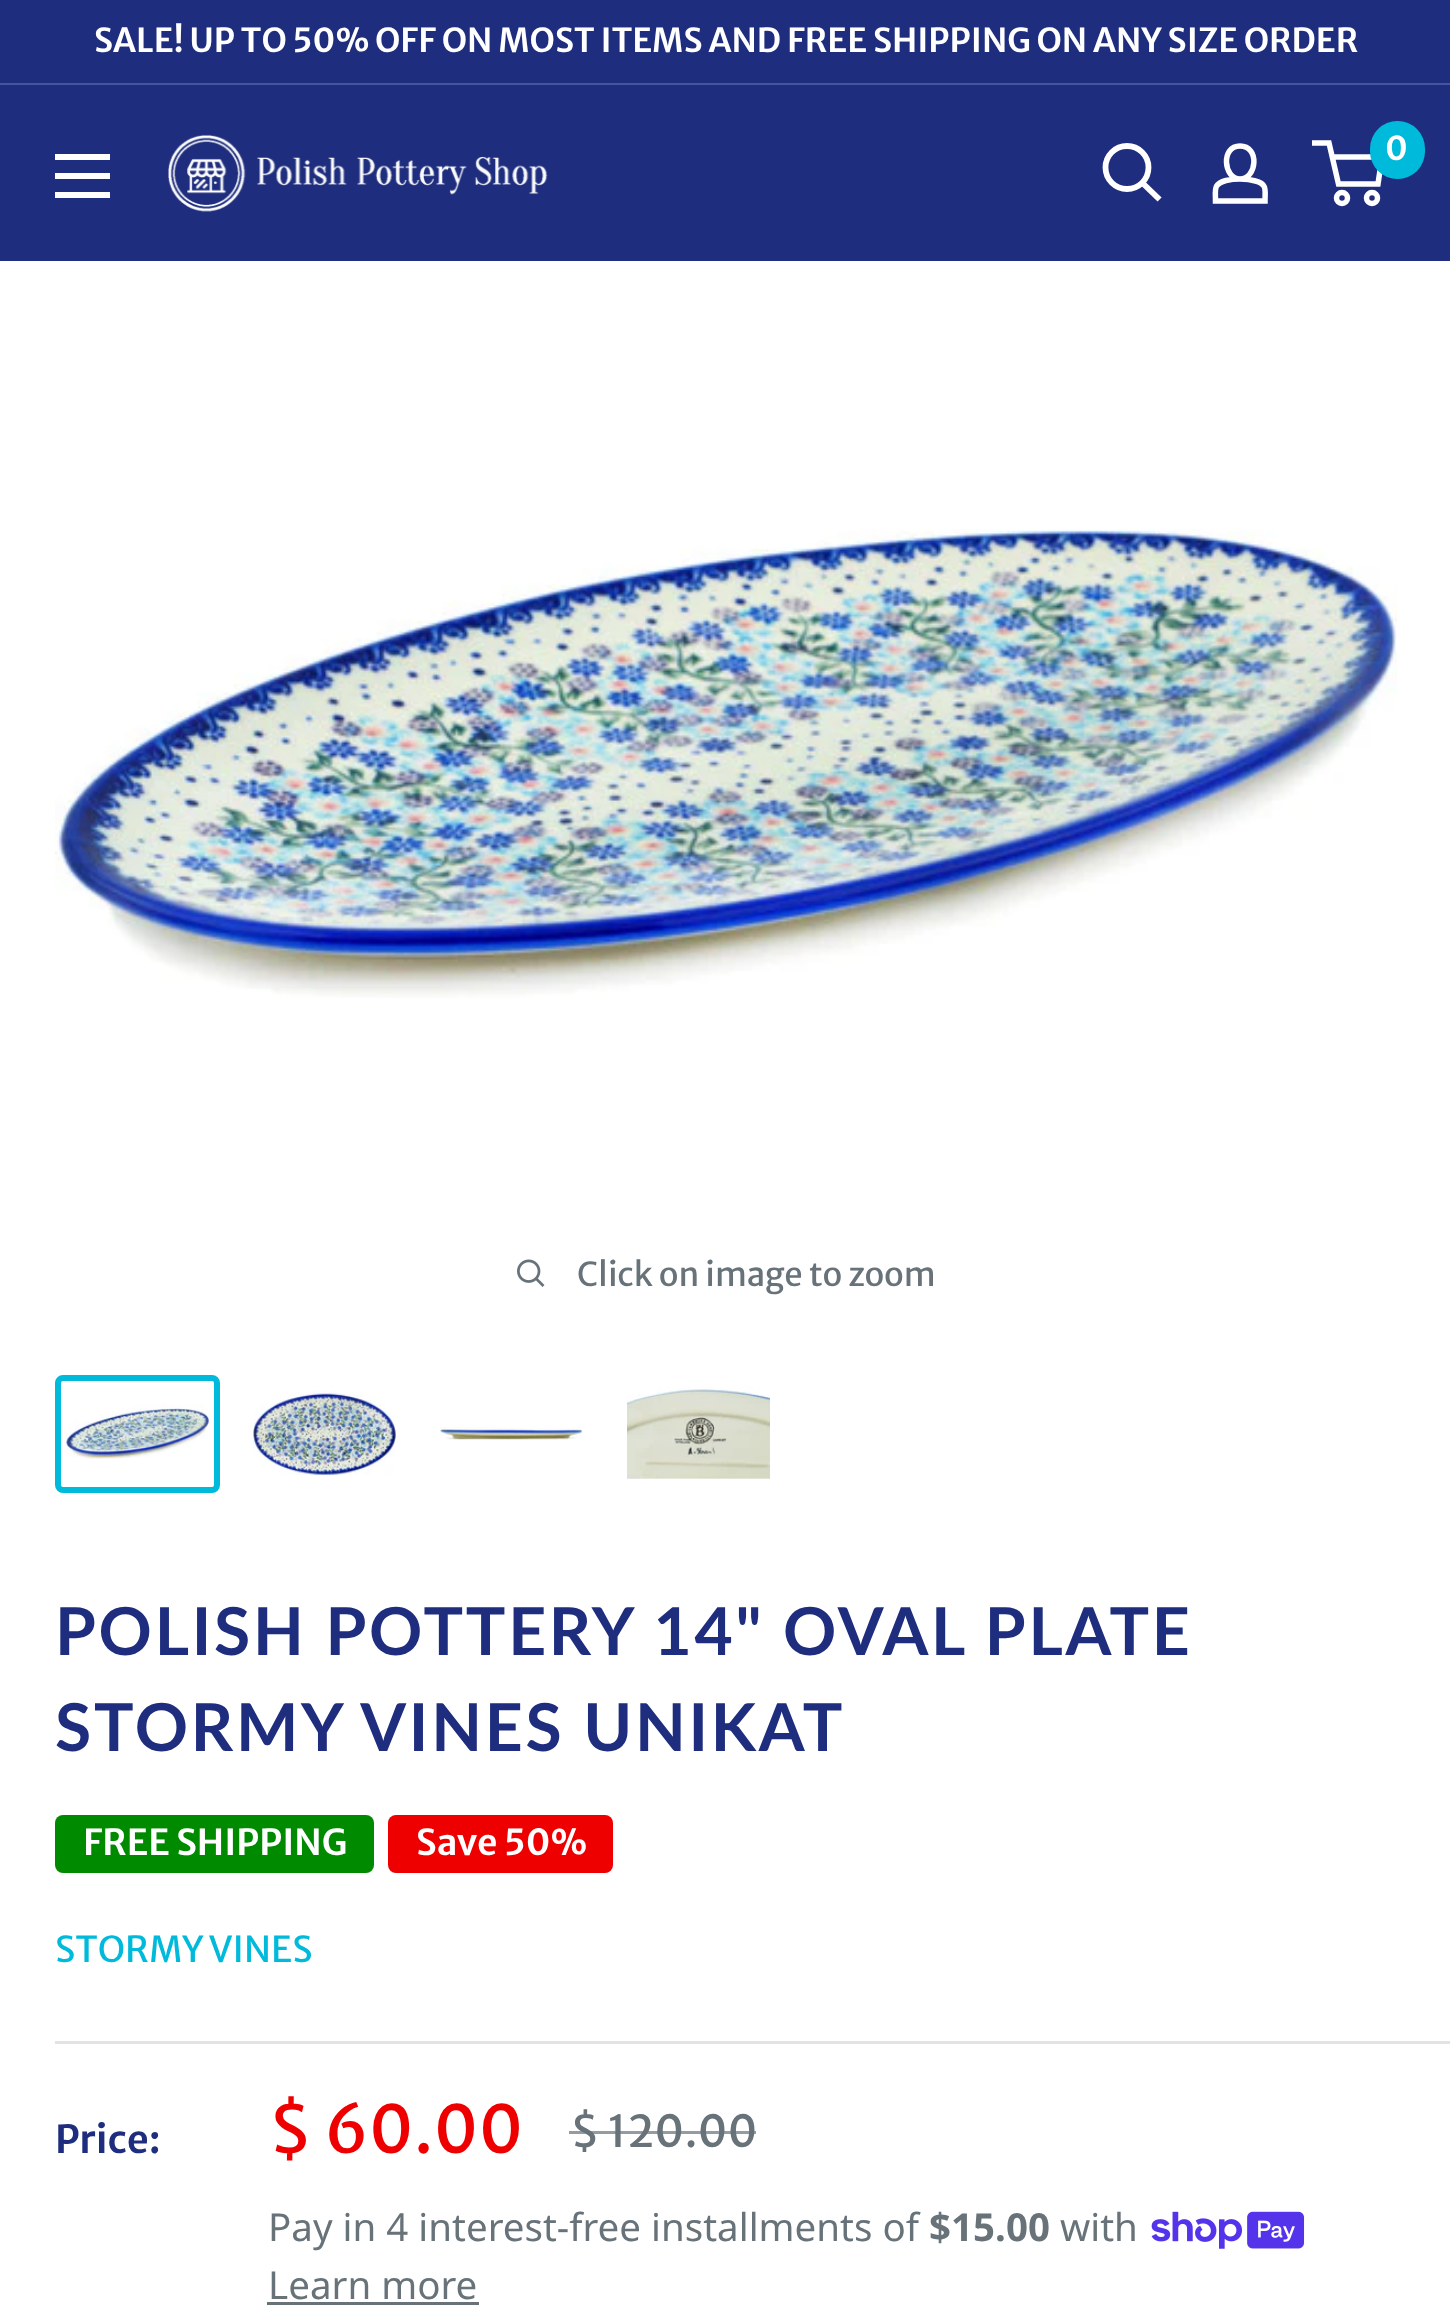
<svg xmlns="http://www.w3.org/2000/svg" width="1450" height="2310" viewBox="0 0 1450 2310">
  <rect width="100%" height="100%" fill="#1e2d7d"/>
  <path d="M0 83h1450v2H0z" fill="#46549f"/>
  <image x="168" y="134" width="380" height="78" href="img/1.png"/>
  <path d="M1157.5 197.5L1143 183.5" fill="none" stroke="#fff" stroke-width="5.8" stroke-linecap="square"/>
  <circle cx="1127" cy="167.5" r="21.5" fill="none" stroke="#fff" stroke-width="5.8"/>
  <path d="M1240 179C1245.5 179 1250.5 179.5 1255.5 181C1267.5 184 1265 190.5 1265 201H1215.5C1215.5 189.5 1213 184 1226 180.5C1230.5 179.5 1235.5 179 1240 179ZM1240 179C1223.5 179 1220.5 146 1240 146C1260 146 1257 179 1240 179Z" fill="none" stroke="#fff" stroke-width="5.5"/>
  <circle cx="1342" cy="198" r="5.5" fill="none" stroke="#fff" stroke-width="5.5"/>
  <circle cx="1372" cy="198" r="5.5" fill="none" stroke="#fff" stroke-width="5.5"/>
  <path d="M1332 157H1382L1378 184H1338.5L1329 143H1312" fill="none" stroke="#fff" stroke-width="5.5"/>
  <rect x="1370" y="121" width="55" height="58" rx="27.5" fill="#00badb"/>
  <path d="M55 192H110V198H55ZM55 154H110V160H55ZM55 173H110V179H55Z" fill="#fff" fill-rule="evenodd"/>
  <path d="M0 261h1450v2049H0z" fill="#fff"/>
  <image x="55" y="529" width="1342" height="469" href="img/2.png"/>
  <image x="517" y="1259" width="28" height="28" href="img/3.png"/>
  <rect x="58" y="1378" width="159" height="112" rx="5" fill="none" stroke="#00badb" stroke-width="6"/>
  <image x="66" y="1404" width="143" height="55" href="img/4.png"/>
  <image x="253" y="1390" width="143" height="86" href="img/5.png"/>
  <image x="440" y="1427" width="143" height="13" href="img/6.png"/>
  <image x="627" y="1386" width="143" height="94" href="img/7.png"/>
  <rect x="55" y="1815" width="319" height="58" rx="8" fill="#008a00"/>
  <rect x="388" y="1815" width="225" height="58" rx="8" fill="#e00"/>
  <path d="M55 2041h1395v3H55z" fill="#e1e3e4"/>
  <image x="1151" y="2211" width="154" height="38" href="img/8.png"/>
  <path d="M267 2302h212v3H267z" fill="#677279"/>
  <g font-family="Merriweather Sans" font-size="33" font-weight="600" fill="#fff">
    <text x="94" y="52">SALE! UP TO 50% OFF ON MOST ITEMS AND FREE SHIPPING ON ANY SIZE ORDER</text>
    <text x="1385" y="160">0</text>
  </g>
  <text x="577" y="1286" font-family="Merriweather Sans" font-size="33" fill="#677279">Click on image to zoom</text>
  <g font-family="Lato" font-size="66" font-weight="bold" letter-spacing="2.75" fill="#1e2d7d">
    <text x="55" y="1655">POLISH POTTERY 14" OVAL PLATE</text>
    <text x="55" y="1751">STORMY VINES UNIKAT</text>
  </g>
  <g font-family="Merriweather Sans" font-size="35.75" font-weight="600" fill="#fff">
    <text x="83" y="1855">FREE SHIPPING</text>
    <text x="416" y="1855">Save 50%</text>
  </g>
  <text x="55" y="1962" font-family="Merriweather Sans" font-size="35.75" fill="#00badb">STORMY VINES</text>
  <text x="55" y="2153" font-family="Merriweather Sans" font-size="38.5" font-weight="600" fill="#1e2d7d">Price:</text>
  <text x="268" y="2153" font-family="Merriweather Sans" font-size="66" fill="#e00">$ 60.00</text>
  <text x="570" y="2147" font-family="Merriweather Sans" font-size="44" fill="#677279">$ 120.00</text>
  <path d="M569 2131h187v3H569z" fill="#677279b3"/>
  <text x="268" y="2241" font-family="Noto Sans" font-size="38.5" fill="#677279">Pay in 4 interest-free installments of</text>
  <text x="929" y="2241" font-family="Noto Sans" font-size="38.5" font-weight="bold" fill="#677279">$15.00</text>
  <g font-family="Noto Sans" font-size="38.5" fill="#677279">
    <text x="1060" y="2241">with</text>
    <text x="268" y="2299">Learn more</text>
  </g>
</svg>
